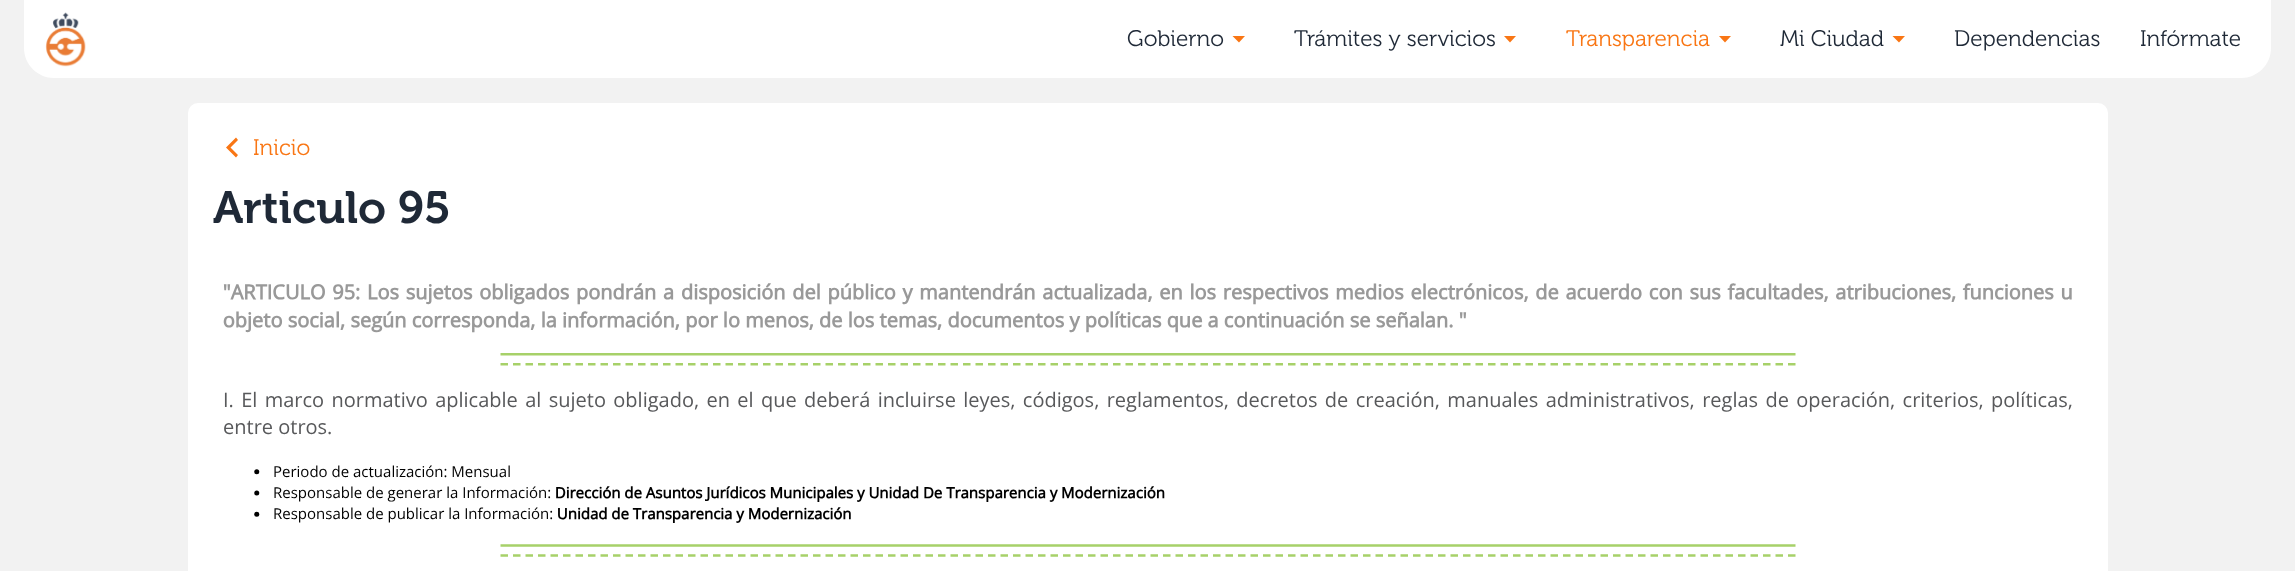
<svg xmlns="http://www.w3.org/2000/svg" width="2295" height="571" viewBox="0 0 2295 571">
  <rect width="100%" height="100%" fill="#f2f2f2"/>
  <path d="M24 0H2271V48C2271 64.5 2257.5 78 2241 78H54C37.5 78 24 64.5 24 48Z" fill="#fff"/>
  <image x="45" y="12" width="41" height="55" href="img/1.png"/>
  <path d="M1232.5 36L1239 42.5L1245 36Z" fill="#f97614"/>
  <path d="M1504 36L1510 42.5L1516 36Z" fill="#f97614"/>
  <path d="M1719 36L1725 42.5L1731 36Z" fill="#f97614"/>
  <path d="M1892.5 36L1899 42.5L1905 36Z" fill="#f97614"/>
  <rect x="188" y="103" width="1920" height="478" rx="10" fill="#fff"/>
  <path d="M238 155L230.5 147.5L238 140L236 137.5L226 147.5L236 157.5Z" fill="#f97614"/>
  <image x="223" y="283" width="1849" height="274" href="img/2.png"/>
  <g font-family="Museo" font-size="22.5" fill="#1f2937">
    <text x="1127" y="46">Gobierno</text>
    <text x="1294" y="46">Trámites y servicios</text>
  </g>
  <text x="1566" y="46" font-family="Museo" font-size="22.5" fill="#f97614">Transparencia</text>
  <g font-family="Museo" font-size="22.5" fill="#1f2937">
    <text x="1780" y="46">Mi Ciudad</text>
    <text x="1954" y="46">Dependencias</text>
    <text x="2140" y="46">Infórmate</text>
  </g>
  <text x="253" y="155" font-family="Museo" font-size="22.5" fill="#f97614">Inicio</text>
  <text x="213" y="223" font-family="Museo" font-size="45" font-weight="600" fill="#1f2937">Articulo 95</text>
</svg>
